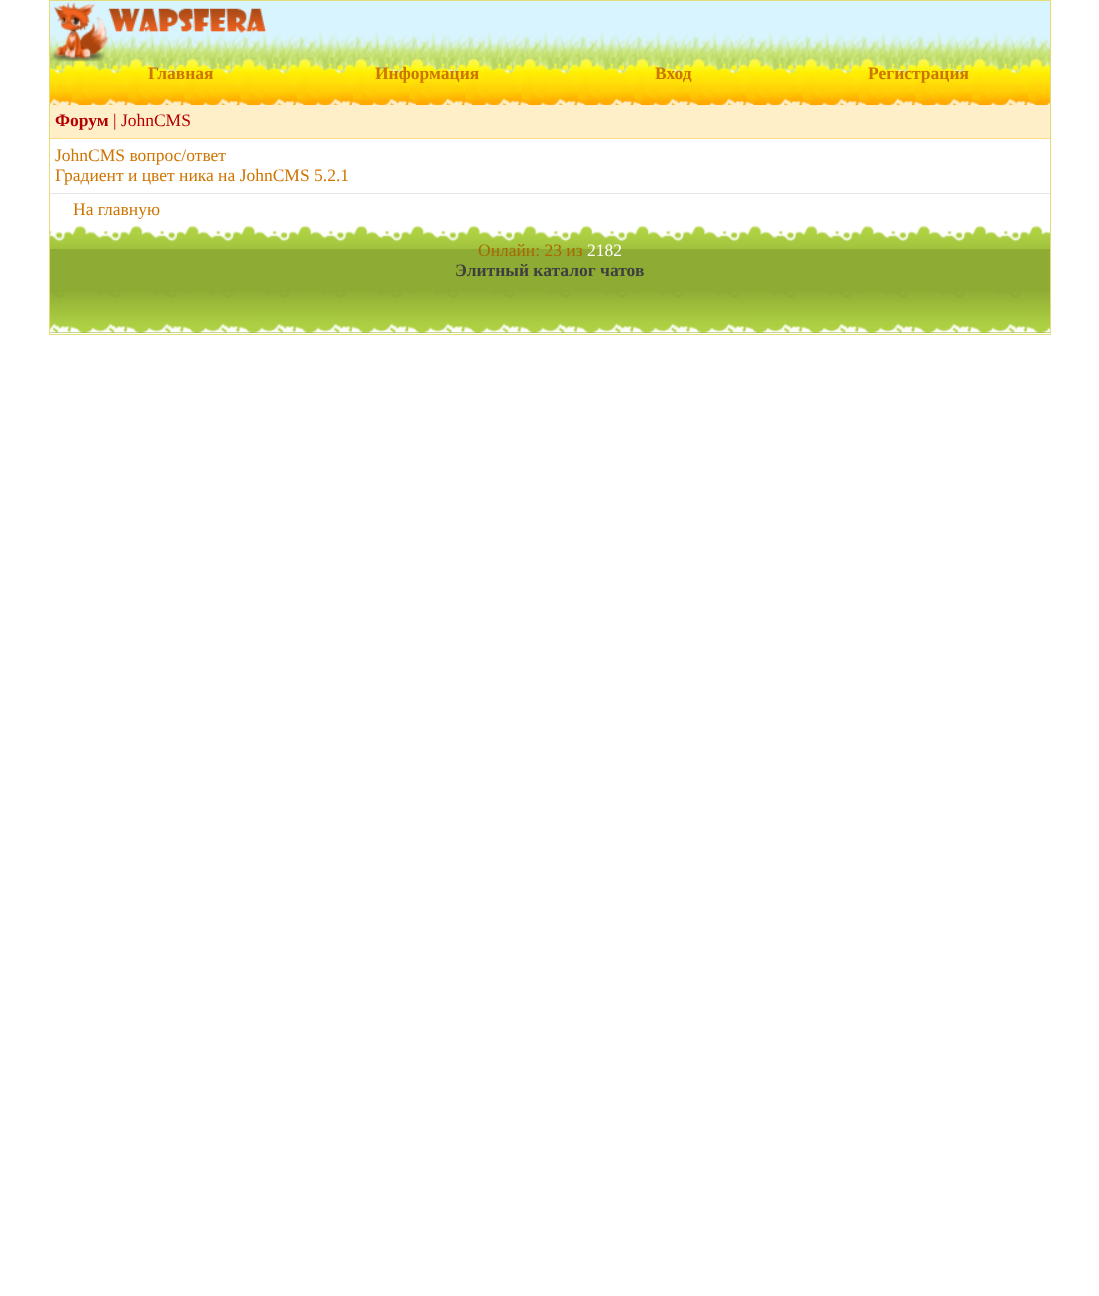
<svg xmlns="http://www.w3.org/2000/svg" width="1099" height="1296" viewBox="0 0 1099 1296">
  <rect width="100%" height="100%" fill="#fff"/>
  <path d="M49.5 0.5h1001v334H49.5z" fill="none" stroke="#e4dc79"/>
  <path d="M50 1h1000v30H50z" fill="#d8f4ff"/>
  <image x="50" y="31" width="1000" height="27" href="img/1.png"/>
  <image x="50" y="57" width="1000" height="48" href="img/3.png"/>
  <image x="50" y="2" width="217" height="60" href="img/2.png"/>
  <path d="M50 105h1000v33H50z" fill="#ffefc9"/>
  <path d="M50 138h1000v1H50z" fill="#ffdc84"/>
  <path d="M50 193h1000v1H50z" fill="#e7e7e7"/>
  <image x="50" y="226" width="1000" height="23" href="img/4.png"/>
  <path d="M50 249h1000v84H50z" fill="#8eab34"/>
  <image x="50" y="292" width="1000" height="41" href="img/5.png"/>
  <g font-family="Liberation Serif" font-size="17.5" font-weight="bold" fill="#ce7400">
    <text x="148" y="79">Главная</text>
    <text x="375" y="79">Информация</text>
    <text x="655" y="79">Вход</text>
    <text x="868" y="79">Регистрация</text>
  </g>
  <text x="55" y="126" font-family="Liberation Serif" font-size="17.5" font-weight="bold" fill="#b40000">Форум</text>
  <text x="113" y="126" font-family="Liberation Serif" font-size="17.5" fill="#b40000">| JohnCMS</text>
  <g font-family="Liberation Serif" font-size="17.5" fill="#ce7400">
    <text x="55" y="161">JohnCMS вопрос/ответ</text>
    <text x="55" y="181">Градиент и цвет ника на JohnCMS 5.2.1</text>
    <text x="73" y="215">На главную</text>
  </g>
  <text x="478" y="256" font-family="Liberation Serif" font-size="17.5" fill="#a86a00">Онлайн: 23 из</text>
  <text x="587" y="256" font-family="Liberation Serif" font-size="17.5" fill="#fff">2182</text>
  <text x="455" y="276" font-family="Liberation Serif" font-size="17.5" font-weight="bold" fill="#3f3f3f">Элитный каталог чатов</text>
</svg>
